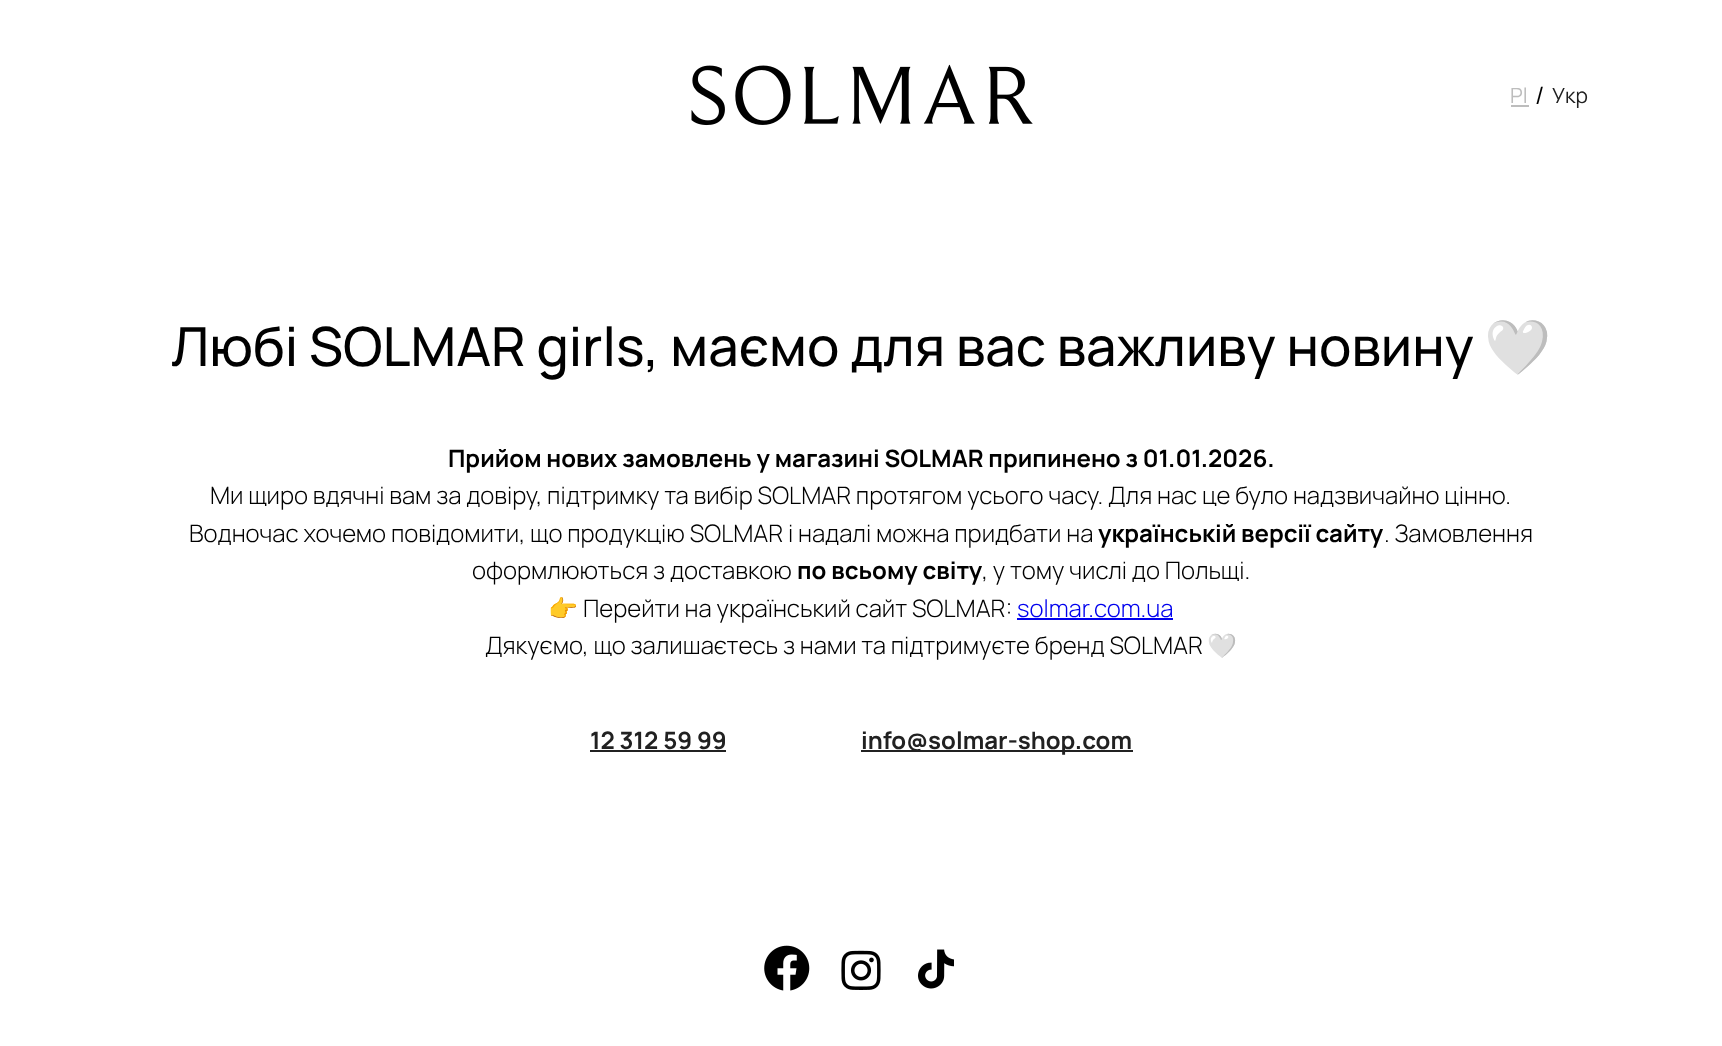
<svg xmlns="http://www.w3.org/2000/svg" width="1722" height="1046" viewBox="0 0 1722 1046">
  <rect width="100%" height="100%" fill="#fff"/>
  <image x="691" y="64" width="342" height="62" href="img/1.png"/>
  <path d="M1511 105h18v2H1511z" fill="#bdbdbd"/>
  <path d="M1017 618h156v2H1017z" fill="#00e"/>
  <path d="M590 750h136v2H590z" fill="#212121"/>
  <path d="M861 750h272v2H861z" fill="#212121"/>
  <image x="764" y="945" width="46" height="46" href="img/2.png"/>
  <image x="841" y="950" width="40" height="40" href="img/3.png"/>
  <image x="918" y="949" width="36" height="40" href="img/4.png"/>
  <text x="1510" y="103" font-family="Manrope" font-size="21" fill="#bdbdbd">Pl</text>
  <text x="1535" y="104" font-family="Manrope" font-size="24" fill="#000">/</text>
  <text x="1552" y="103" font-family="Manrope" font-size="21" fill="#212121">Укр</text>
  <text x="171" y="366" font-family="Manrope" font-size="54" font-weight="500" fill="#000">Любі SOLMAR girls, маємо для вас важливу новину</text>
  <text x="1484" y="366" font-family="Noto Color Emoji" font-size="54" fill="#000">🤍</text>
  <text x="448" y="467" font-family="Manrope" font-size="24" font-weight="bold" fill="#000">Прийом нових замовлень у магазині SOLMAR припинено з 01.01.2026.</text>
  <g font-family="Manrope" font-size="24" font-weight="300" fill="#000">
    <text x="210" y="504">Ми щиро вдячні вам за довіру, підтримку та вибір SOLMAR протягом усього часу. Для нас це було надзвичайно цінно.</text>
    <text x="189" y="542">Водночас хочемо повідомити, що продукцію SOLMAR і надалі можна придбати на</text>
  </g>
  <text x="1098" y="542" font-family="Manrope" font-size="24" font-weight="bold" fill="#000">українській версії сайту</text>
  <g font-family="Manrope" font-size="24" font-weight="300" fill="#000">
    <text x="1384" y="542">. Замовлення</text>
    <text x="472" y="579">оформлюються з доставкою</text>
  </g>
  <text x="797" y="579" font-family="Manrope" font-size="24" font-weight="bold" fill="#000">по всьому світу</text>
  <text x="982" y="579" font-family="Manrope" font-size="24" font-weight="300" fill="#000">, у тому числі до Польщі.</text>
  <text x="548" y="617" font-family="Noto Color Emoji" font-size="24" fill="#000">👉</text>
  <text x="583" y="617" font-family="Manrope" font-size="24" font-weight="300" fill="#000">Перейти на український сайт SOLMAR:</text>
  <text x="1017" y="617" font-family="Manrope" font-size="24" font-weight="300" fill="#00e">solmar.com.ua</text>
  <text x="485" y="654" font-family="Manrope" font-size="24" font-weight="300" fill="#000">Дякуємо, що залишаєтесь з нами та підтримуєте бренд SOLMAR</text>
  <text x="1207" y="654" font-family="Noto Color Emoji" font-size="24" fill="#000">🤍</text>
  <g font-family="Manrope" font-size="24" font-weight="bold" fill="#212121">
    <text x="590" y="749">12 312 59 99</text>
    <text x="861" y="749">info@solmar-shop.com</text>
  </g>
</svg>
